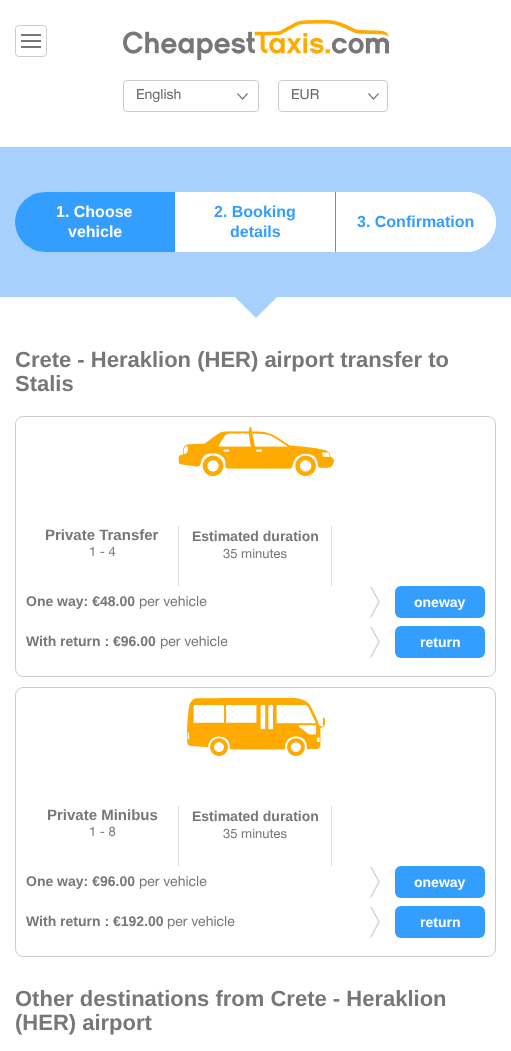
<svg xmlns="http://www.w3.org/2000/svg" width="511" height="1051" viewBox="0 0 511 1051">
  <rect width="100%" height="100%" fill="#fff"/>
  <image x="15" y="25" width="32" height="32" href="img/1.png"/>
  <image x="123" y="20" width="266" height="40" href="img/2.png"/>
  <image x="237" y="93" width="11" height="7" href="img/3.png"/>
  <rect x="123.5" y="80.5" width="135" height="31" rx="3.5" fill="none" stroke="#ccc"/>
  <image x="368" y="93" width="11" height="7" href="img/3.png"/>
  <rect x="278.5" y="80.5" width="109" height="31" rx="3.5" fill="none" stroke="#ccc"/>
  <image x="235" y="297" width="42" height="21" href="img/4.png"/>
  <path d="M0 147h511v150H0z" fill="#a7d0ff"/>
  <rect x="15" y="192" width="481" height="60" rx="30" fill="#fff"/>
  <path d="M45 192H175V252H45C28.5 252 15 238.5 15 222C15 205.5 28.5 192 45 192Z" fill="#349eff"/>
  <path d="M335 192h1v60H335z" fill="#349eff"/>
  <path d="M336 192H466C482.5 192 496 205.5 496 222C496 238.5 482.5 252 466 252H336Z" fill="#fff"/>
  <rect x="15.5" y="416.5" width="480" height="260" rx="7.5" fill="none" stroke="#cdcdcd"/>
  <image x="178" y="427" width="156" height="49" href="img/5.png"/>
  <path d="M178 526h1v60H178z" fill="#ddd"/>
  <path d="M331 526h1v60H331z" fill="#ddd"/>
  <image x="370" y="586" width="10" height="32" href="img/6.png"/>
  <rect x="395" y="586" width="90" height="32" rx="6" fill="#349eff"/>
  <image x="370" y="626" width="10" height="32" href="img/6.png"/>
  <rect x="395" y="626" width="90" height="32" rx="6" fill="#349eff"/>
  <rect x="15.5" y="687.5" width="480" height="269" rx="7.5" fill="none" stroke="#cdcdcd"/>
  <image x="187" y="698" width="138" height="58" href="img/7.png"/>
  <path d="M178 806h1v60H178z" fill="#ddd"/>
  <path d="M331 806h1v60H331z" fill="#ddd"/>
  <image x="370" y="866" width="10" height="32" href="img/6.png"/>
  <rect x="395" y="866" width="90" height="32" rx="6" fill="#349eff"/>
  <image x="370" y="906" width="10" height="32" href="img/6.png"/>
  <rect x="395" y="906" width="90" height="32" rx="6" fill="#349eff"/>
  <g font-family="'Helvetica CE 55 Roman'" font-size="14" fill="#666">
    <text x="136" y="99">English</text>
    <text x="291" y="99">EUR</text>
  </g>
  <g font-family="Liberation Sans" font-size="16" font-weight="bold" fill="#fff">
    <text x="56" y="217">1. Choose</text>
    <text x="68" y="237">vehicle</text>
  </g>
  <g font-family="Liberation Sans" font-size="16" font-weight="bold" fill="#349eff">
    <text x="214" y="217">2. Booking</text>
    <text x="230" y="237">details</text>
    <text x="357" y="227">3. Confirmation</text>
  </g>
  <g font-family="Liberation Sans" font-size="22" font-weight="bold" fill="#777">
    <text x="15" y="367">Crete - Heraklion (HER) airport transfer to</text>
    <text x="15" y="391">Stalis</text>
  </g>
  <text x="45" y="540" font-family="Liberation Sans" font-size="15" font-weight="bold" fill="#777">Private Transfer</text>
  <text x="89" y="556" font-family="'Helvetica CE 55 Roman'" font-size="13" fill="#777">1 - 4</text>
  <text x="192" y="541" font-family="Liberation Sans" font-size="14" font-weight="bold" fill="#777">Estimated duration</text>
  <text x="223" y="558" font-family="'Helvetica CE 55 Roman'" font-size="13" fill="#777">35 minutes</text>
  <text x="26" y="606" font-family="Liberation Sans" font-size="14" font-weight="bold" fill="#777">One way: €48.00</text>
  <text x="139" y="606" font-family="'Helvetica CE 55 Roman'" font-size="14" fill="#777">per vehicle</text>
  <text x="414" y="607" font-family="Liberation Sans" font-size="14" font-weight="bold" fill="#fff">oneway</text>
  <text x="26" y="646" font-family="Liberation Sans" font-size="14" font-weight="bold" fill="#777">With return : €96.00</text>
  <text x="160" y="646" font-family="'Helvetica CE 55 Roman'" font-size="14" fill="#777">per vehicle</text>
  <text x="420" y="647" font-family="Liberation Sans" font-size="14" font-weight="bold" fill="#fff">return</text>
  <text x="47" y="820" font-family="Liberation Sans" font-size="15" font-weight="bold" fill="#777">Private Minibus</text>
  <text x="89" y="836" font-family="'Helvetica CE 55 Roman'" font-size="13" fill="#777">1 - 8</text>
  <text x="192" y="821" font-family="Liberation Sans" font-size="14" font-weight="bold" fill="#777">Estimated duration</text>
  <text x="223" y="838" font-family="'Helvetica CE 55 Roman'" font-size="13" fill="#777">35 minutes</text>
  <text x="26" y="886" font-family="Liberation Sans" font-size="14" font-weight="bold" fill="#777">One way: €96.00</text>
  <text x="139" y="886" font-family="'Helvetica CE 55 Roman'" font-size="14" fill="#777">per vehicle</text>
  <text x="414" y="887" font-family="Liberation Sans" font-size="14" font-weight="bold" fill="#fff">oneway</text>
  <text x="26" y="926" font-family="Liberation Sans" font-size="14" font-weight="bold" fill="#777">With return : €192.00</text>
  <text x="167" y="926" font-family="'Helvetica CE 55 Roman'" font-size="14" fill="#777">per vehicle</text>
  <text x="420" y="927" font-family="Liberation Sans" font-size="14" font-weight="bold" fill="#fff">return</text>
  <g font-family="Liberation Sans" font-size="22" font-weight="bold" fill="#777">
    <text x="15" y="1006">Other destinations from Crete - Heraklion</text>
    <text x="15" y="1030">(HER) airport</text>
  </g>
</svg>
